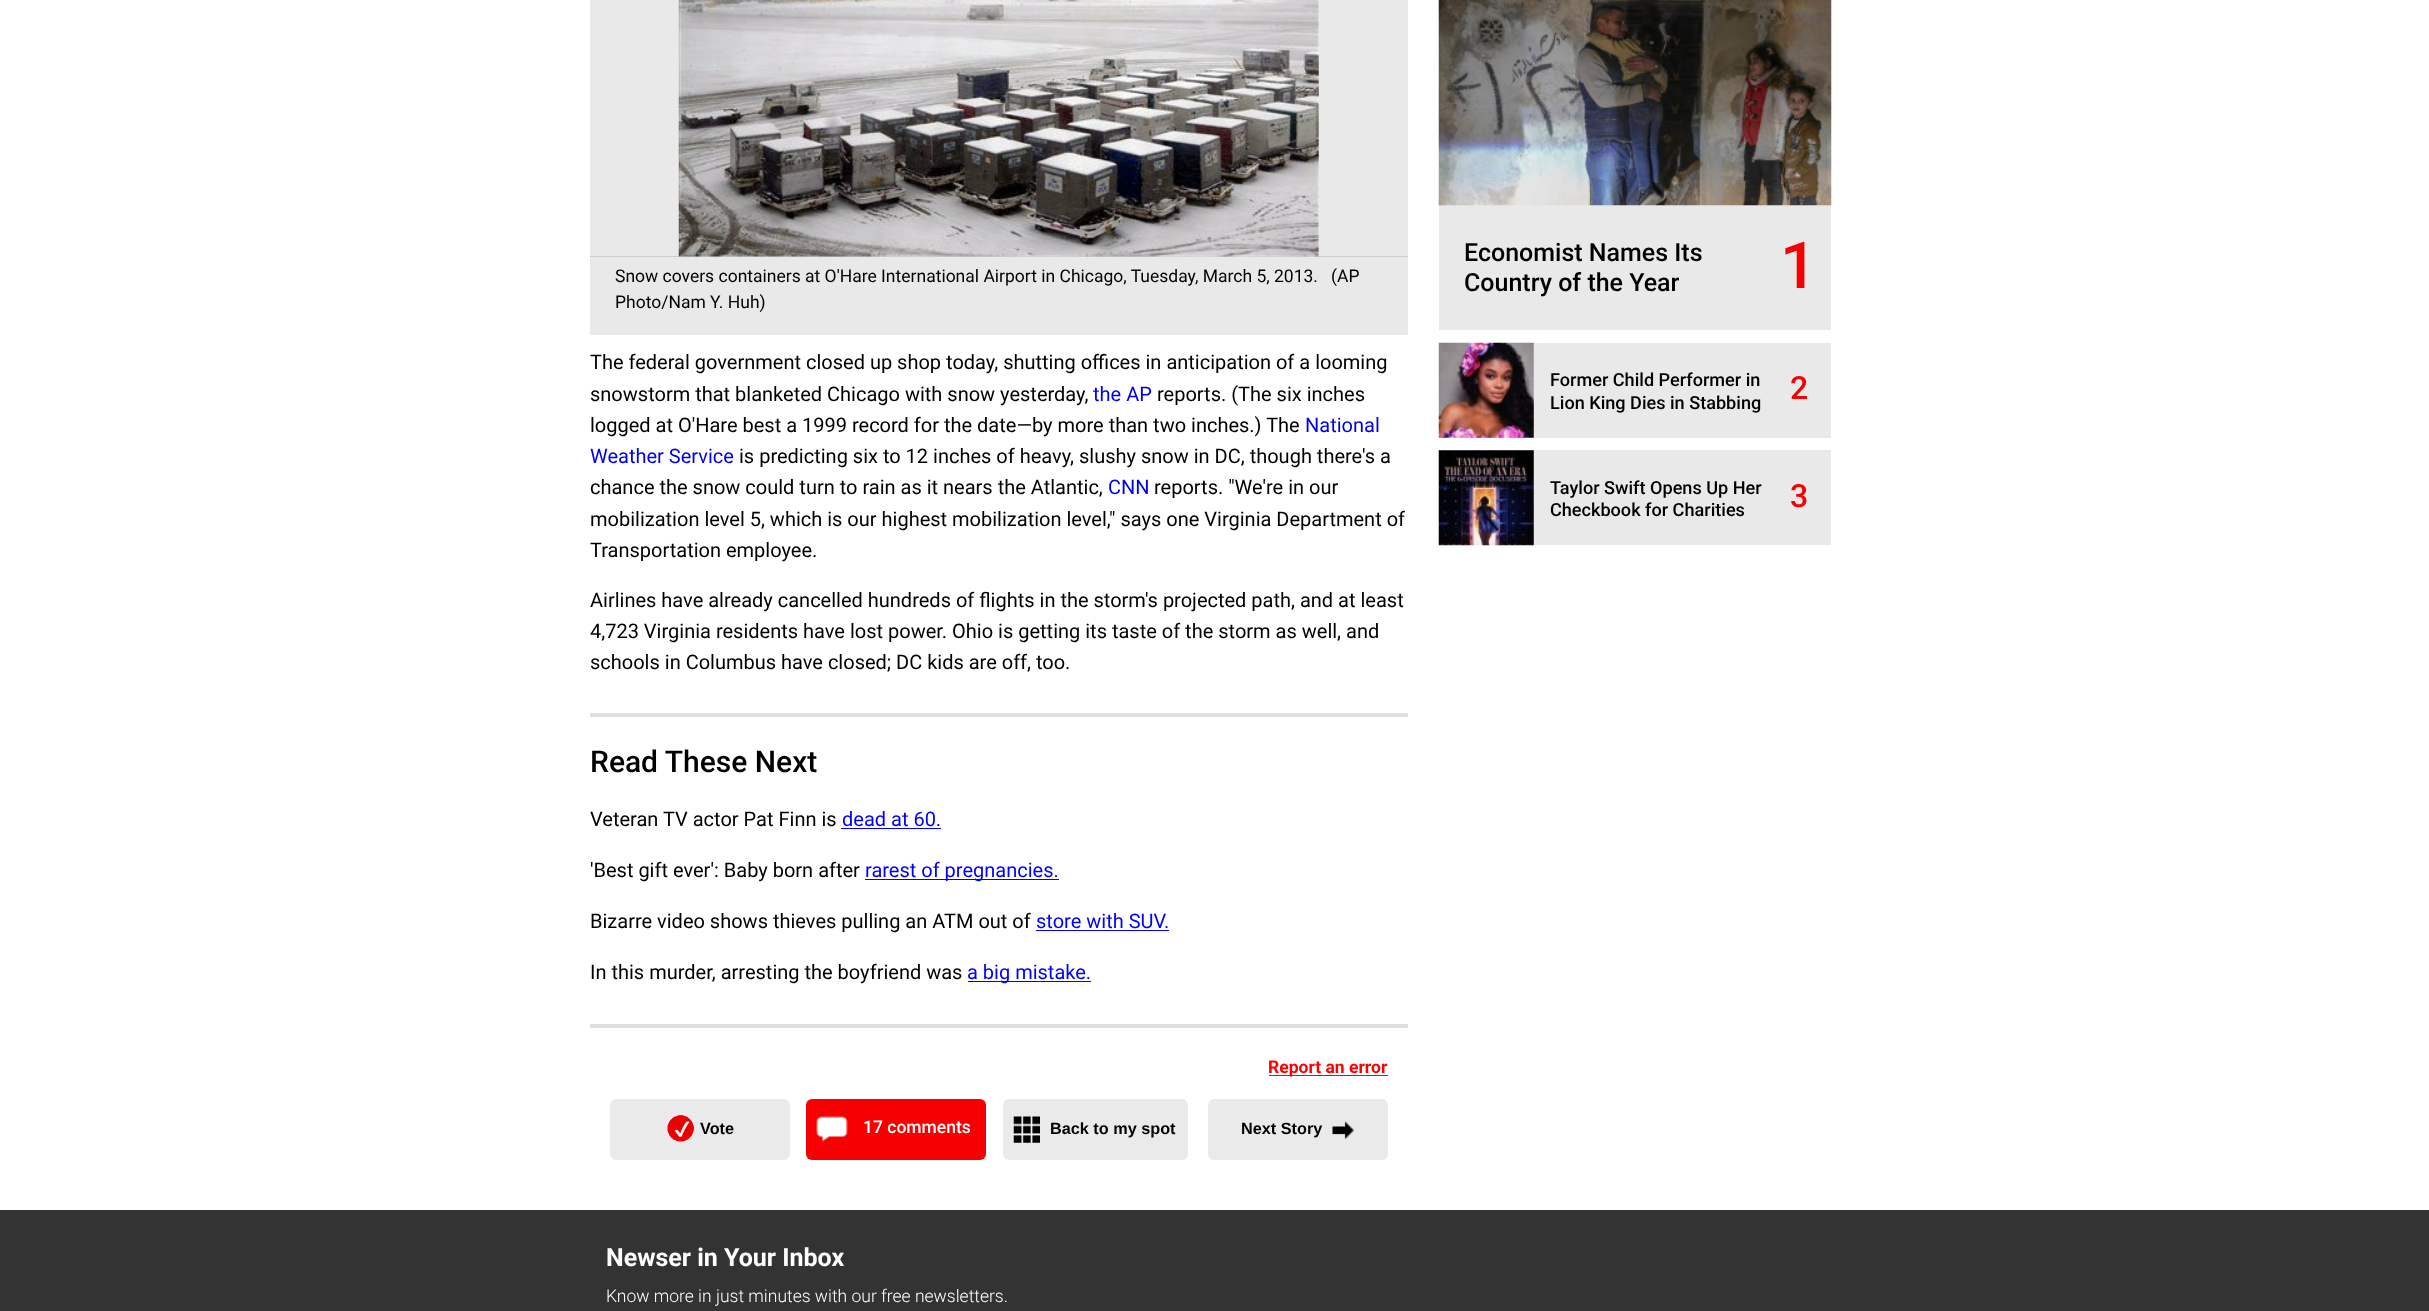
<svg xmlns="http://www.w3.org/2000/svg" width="2429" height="1311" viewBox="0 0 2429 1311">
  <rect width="100%" height="100%" fill="#fff"/>
  <path d="M590 0h818v335H590z" fill="#e9e9e9"/>
  <path d="M590 256h818v1H590z" fill="#ccc"/>
  <image x="678" y="0" width="641" height="257" href="img/1.png"/>
  <path d="M590 713h818v4H590z" fill="#dedede"/>
  <path d="M841 828h100v1H841z" fill="#00f"/>
  <path d="M865 879h194v1H865z" fill="#00f"/>
  <path d="M1036 930h133v1H1036z" fill="#00f"/>
  <path d="M968 981h123v1H968z" fill="#00f"/>
  <path d="M590 1024h818v4H590z" fill="#dedede"/>
  <path d="M1269 1075h119v1H1269z" fill="#f00"/>
  <rect x="610" y="1099" width="180" height="61" rx="6" fill="#ebeaea"/>
  <image x="667" y="1115" width="27" height="27" href="img/2.png"/>
  <rect x="806" y="1099" width="180" height="61" rx="6" fill="#f60001"/>
  <image x="816" y="1116" width="32" height="26" href="img/3.png"/>
  <rect x="1003" y="1099" width="185" height="61" rx="6" fill="#ebeaea"/>
  <image x="1013" y="1116" width="27" height="27" href="img/4.png"/>
  <rect x="1208" y="1099" width="180" height="61" rx="6" fill="#ebeaea"/>
  <image x="1332" y="1121" width="22" height="18" href="img/5.png"/>
  <path d="M1439 205h392v125H1439z" fill="#e9e9e9"/>
  <image x="1438" y="0" width="394" height="206" href="img/6.png"/>
  <path d="M1439 343h392v95H1439z" fill="#e9e9e9"/>
  <image x="1438" y="342" width="96" height="96" href="img/7.png"/>
  <path d="M1439 450h392v95H1439z" fill="#e9e9e9"/>
  <image x="1438" y="450" width="96" height="96" href="img/8.png"/>
  <path d="M0 1210h2429v101H0z" fill="#333"/>
  <g font-family="Roboto" font-size="17.5" fill="#000">
    <text x="615" y="282" xml:space="preserve">Snow covers containers at O'Hare International Airport in Chicago, Tuesday, March 5, 2013.   (AP</text>
    <text x="615" y="308">Photo/Nam Y. Huh)</text>
  </g>
  <g font-family="Roboto" font-size="20" fill="#000">
    <text x="590" y="369">The federal government closed up shop today, shutting offices in anticipation of a looming</text>
    <text x="590" y="401">snowstorm that blanketed Chicago with snow yesterday,</text>
  </g>
  <text x="1093" y="401" font-family="Roboto" font-size="20" fill="#00e">the AP</text>
  <g font-family="Roboto" font-size="20" fill="#000">
    <text x="1157" y="401">reports. (The six inches</text>
    <text x="590" y="432">logged at O'Hare best a 1999 record for the date—by more than two inches.) The</text>
  </g>
  <g font-family="Roboto" font-size="20" fill="#00e">
    <text x="1305" y="432">National</text>
    <text x="590" y="463">Weather Service</text>
  </g>
  <g font-family="Roboto" font-size="20" fill="#000">
    <text x="739" y="463">is predicting six to 12 inches of heavy, slushy snow in DC, though there's a</text>
    <text x="590" y="494">chance the snow could turn to rain as it nears the Atlantic,</text>
  </g>
  <text x="1108" y="494" font-family="Roboto" font-size="20" fill="#00e">CNN</text>
  <g font-family="Roboto" font-size="20" fill="#000">
    <text x="1154" y="494">reports. "We're in our</text>
    <text x="590" y="526">mobilization level 5, which is our highest mobilization level," says one Virginia Department of</text>
    <text x="590" y="557">Transportation employee.</text>
    <text x="590" y="607">Airlines have already cancelled hundreds of flights in the storm's projected path, and at least</text>
    <text x="590" y="638">4,723 Virginia residents have lost power. Ohio is getting its taste of the storm as well, and</text>
    <text x="590" y="669">schools in Columbus have closed; DC kids are off, too.</text>
  </g>
  <text x="590" y="772" font-family="Roboto" font-size="30" font-weight="500" fill="#000">Read These Next</text>
  <text x="590" y="826" font-family="Roboto" font-size="20" fill="#000">Veteran TV actor Pat Finn is</text>
  <text x="842" y="826" font-family="Roboto" font-size="20" fill="#00f">dead at 60.</text>
  <text x="590" y="877" font-family="Roboto" font-size="20" fill="#000">'Best gift ever': Baby born after</text>
  <text x="865" y="877" font-family="Roboto" font-size="20" fill="#00f">rarest of pregnancies.</text>
  <text x="590" y="928" font-family="Roboto" font-size="20" fill="#000">Bizarre video shows thieves pulling an ATM out of</text>
  <text x="1036" y="928" font-family="Roboto" font-size="20" fill="#00f">store with SUV.</text>
  <text x="590" y="979" font-family="Roboto" font-size="20" fill="#000">In this murder, arresting the boyfriend was</text>
  <text x="967" y="979" font-family="Roboto" font-size="20" fill="#00f">a big mistake.</text>
  <text x="1268" y="1073" font-family="Roboto" font-size="17.5" font-weight="bold" fill="#f00">Report an error</text>
  <text x="700" y="1134" font-family="Liberation Sans" font-size="16.25" font-weight="bold" fill="#000">Vote</text>
  <text x="863" y="1133" font-family="Roboto" font-size="17.5" font-weight="500" fill="#fff">17 comments</text>
  <g font-family="Liberation Sans" font-size="16.25" font-weight="bold" fill="#000">
    <text x="1050" y="1134">Back to my spot</text>
    <text x="1241" y="1134">Next Story</text>
  </g>
  <g font-family="Roboto" font-size="25" font-weight="500" fill="#000">
    <text x="1464" y="261">Economist Names Its</text>
    <text x="1464" y="291">Country of the Year</text>
  </g>
  <text x="1780" y="288" font-family="Roboto" font-size="65" font-weight="500" fill="#f60001">1</text>
  <g font-family="Roboto" font-size="18.1" font-weight="500" fill="#000">
    <text x="1550" y="386">Former Child Performer in</text>
    <text x="1550" y="409">Lion King Dies in Stabbing</text>
  </g>
  <text x="1790" y="399" font-family="Roboto" font-size="32" font-weight="500" fill="#f60001">2</text>
  <g font-family="Roboto" font-size="18.1" font-weight="500" fill="#000">
    <text x="1550" y="494">Taylor Swift Opens Up Her</text>
    <text x="1550" y="516">Checkbook for Charities</text>
  </g>
  <text x="1790" y="507" font-family="Roboto" font-size="32" font-weight="500" fill="#f60001">3</text>
  <text x="606" y="1266" font-family="Roboto" font-size="25" font-weight="bold" fill="#fff">Newser in Your Inbox</text>
  <text x="606" y="1302" font-family="Roboto" font-size="17.5" font-weight="300" fill="#fff">Know more in just minutes with our free newsletters.</text>
</svg>
